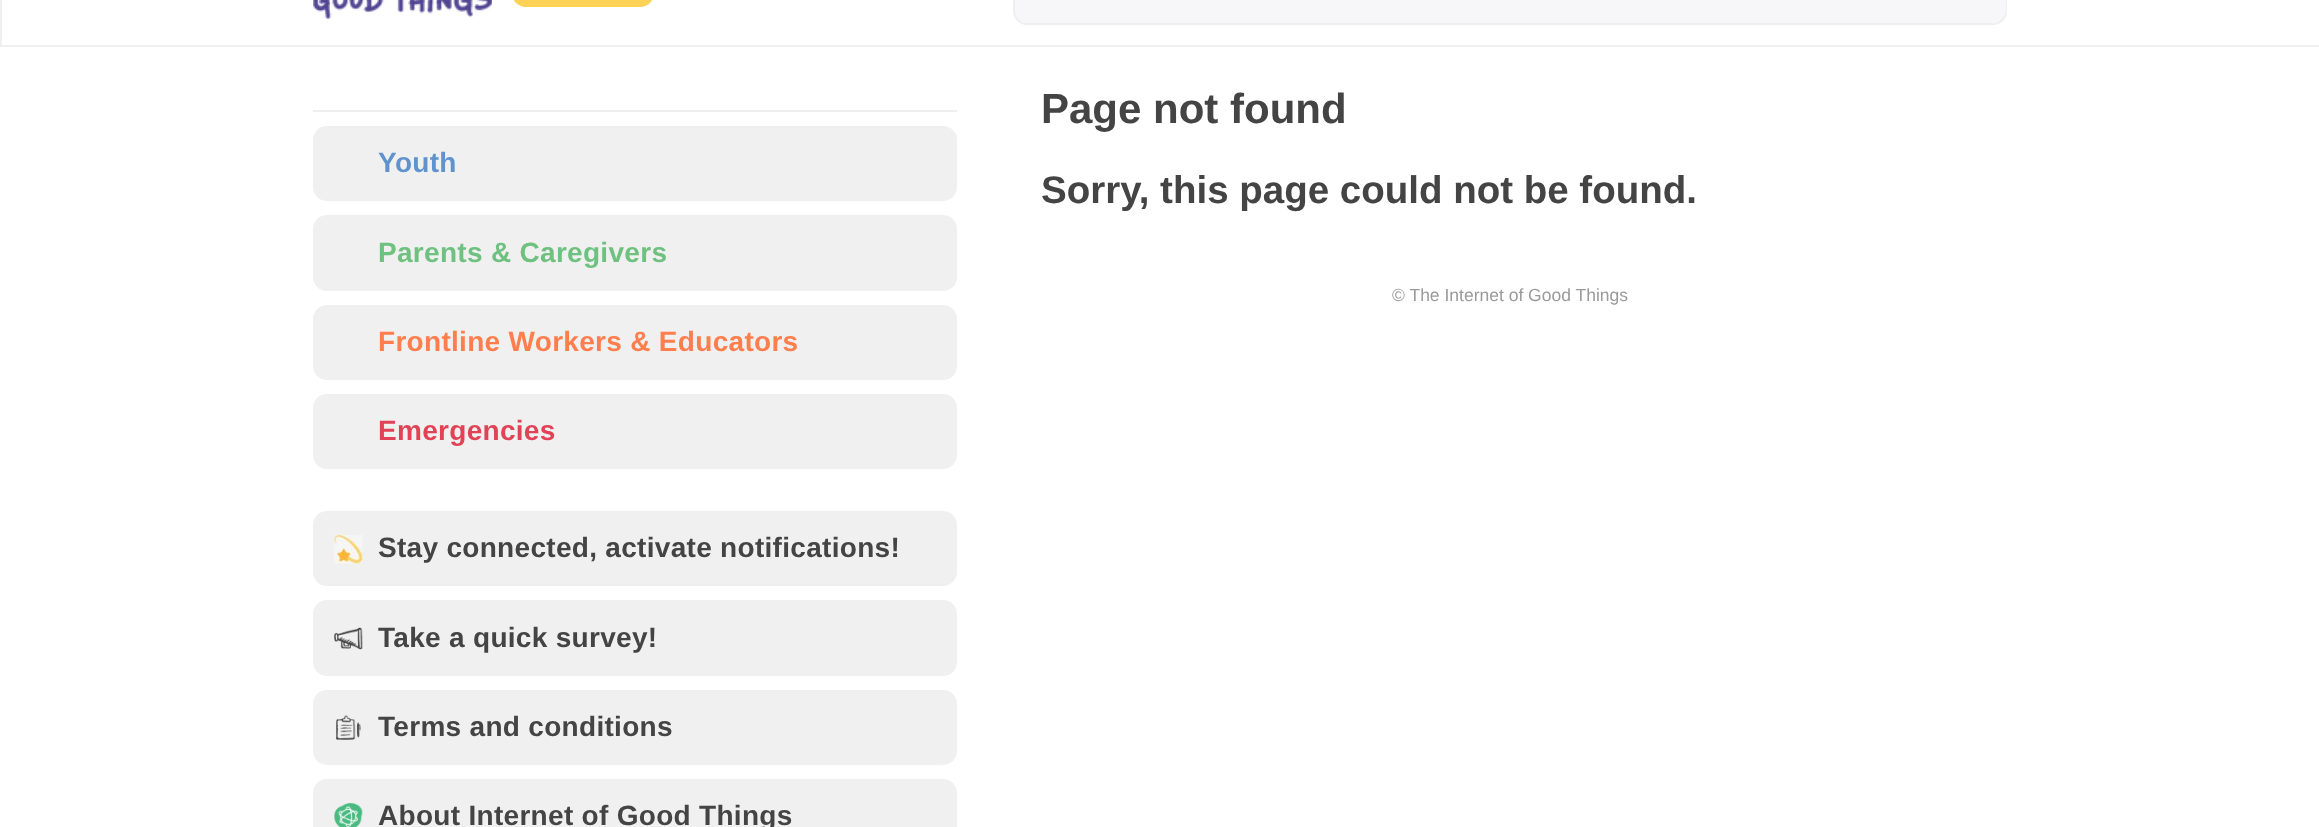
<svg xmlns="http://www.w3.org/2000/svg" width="2319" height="827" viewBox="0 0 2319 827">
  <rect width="100%" height="100%" fill="#fff"/>
  <path d="M1 -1h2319v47H1z" fill="none" stroke="#efefef" stroke-width="2"/>
  <rect x="513" y="-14" width="140" height="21" rx="14" fill="#fdd256"/>
  <image x="313" y="0" width="179" height="19" href="img/1.png"/>
  <rect x="1014" y="-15" width="992" height="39" rx="13" fill="#f7f7f9" stroke="#efefef" stroke-width="2"/>
  <rect x="1015" y="-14" width="991" height="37" rx="14" fill="#f7f7f9"/>
  <path d="M313 110h644v2H313z" fill="#efefef"/>
  <rect x="313" y="126" width="644" height="75" rx="14" fill="#f0f0f0"/>
  <rect x="313" y="215" width="644" height="76" rx="14" fill="#f0f0f0"/>
  <rect x="313" y="305" width="644" height="75" rx="14" fill="#f0f0f0"/>
  <rect x="313" y="394" width="644" height="75" rx="14" fill="#f0f0f0"/>
  <rect x="313" y="511" width="644" height="75" rx="14" fill="#f0f0f0"/>
  <image x="334" y="535" width="29" height="29" href="img/2.png"/>
  <rect x="313" y="600" width="644" height="76" rx="14" fill="#f0f0f0"/>
  <image x="334" y="627" width="29" height="23" href="img/3.png"/>
  <rect x="313" y="690" width="644" height="75" rx="14" fill="#f0f0f0"/>
  <image x="336" y="715" width="25" height="25" href="img/4.png"/>
  <rect x="313" y="779" width="644" height="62" rx="14" fill="#f0f0f0"/>
  <image x="334" y="803" width="29" height="24" href="img/5.png"/>
  <text x="378" y="172" font-family="Liberation Sans" font-size="28" font-weight="bold" letter-spacing="0.3" fill="#6093cd">Youth</text>
  <text x="378" y="262" font-family="Liberation Sans" font-size="28" font-weight="bold" letter-spacing="0.3" fill="#6ec17f">Parents &amp; Caregivers</text>
  <text x="378" y="351" font-family="Liberation Sans" font-size="28" font-weight="bold" letter-spacing="0.3" fill="#ff7e4e">Frontline Workers &amp; Educators</text>
  <text x="378" y="440" font-family="Liberation Sans" font-size="28" font-weight="bold" letter-spacing="0.3" fill="#e24256">Emergencies</text>
  <g font-family="Liberation Sans" font-size="28" font-weight="bold" letter-spacing="0.3" fill="#444">
    <text x="378" y="557">Stay connected, activate notifications!</text>
    <text x="378" y="647">Take a quick survey!</text>
    <text x="378" y="736">Terms and conditions</text>
    <text x="378" y="825">About Internet of Good Things</text>
  </g>
  <text x="1041" y="123" font-family="Liberation Sans" font-size="42" font-weight="bold" fill="#444">Page not found</text>
  <text x="1041" y="203" font-family="Liberation Sans" font-size="38.5" font-weight="bold" fill="#444">Sorry, this page could not be found.</text>
  <text x="1392" y="301" font-family="Liberation Sans" font-size="17.5" fill="#9a9a9a">© The Internet of Good Things</text>
</svg>
